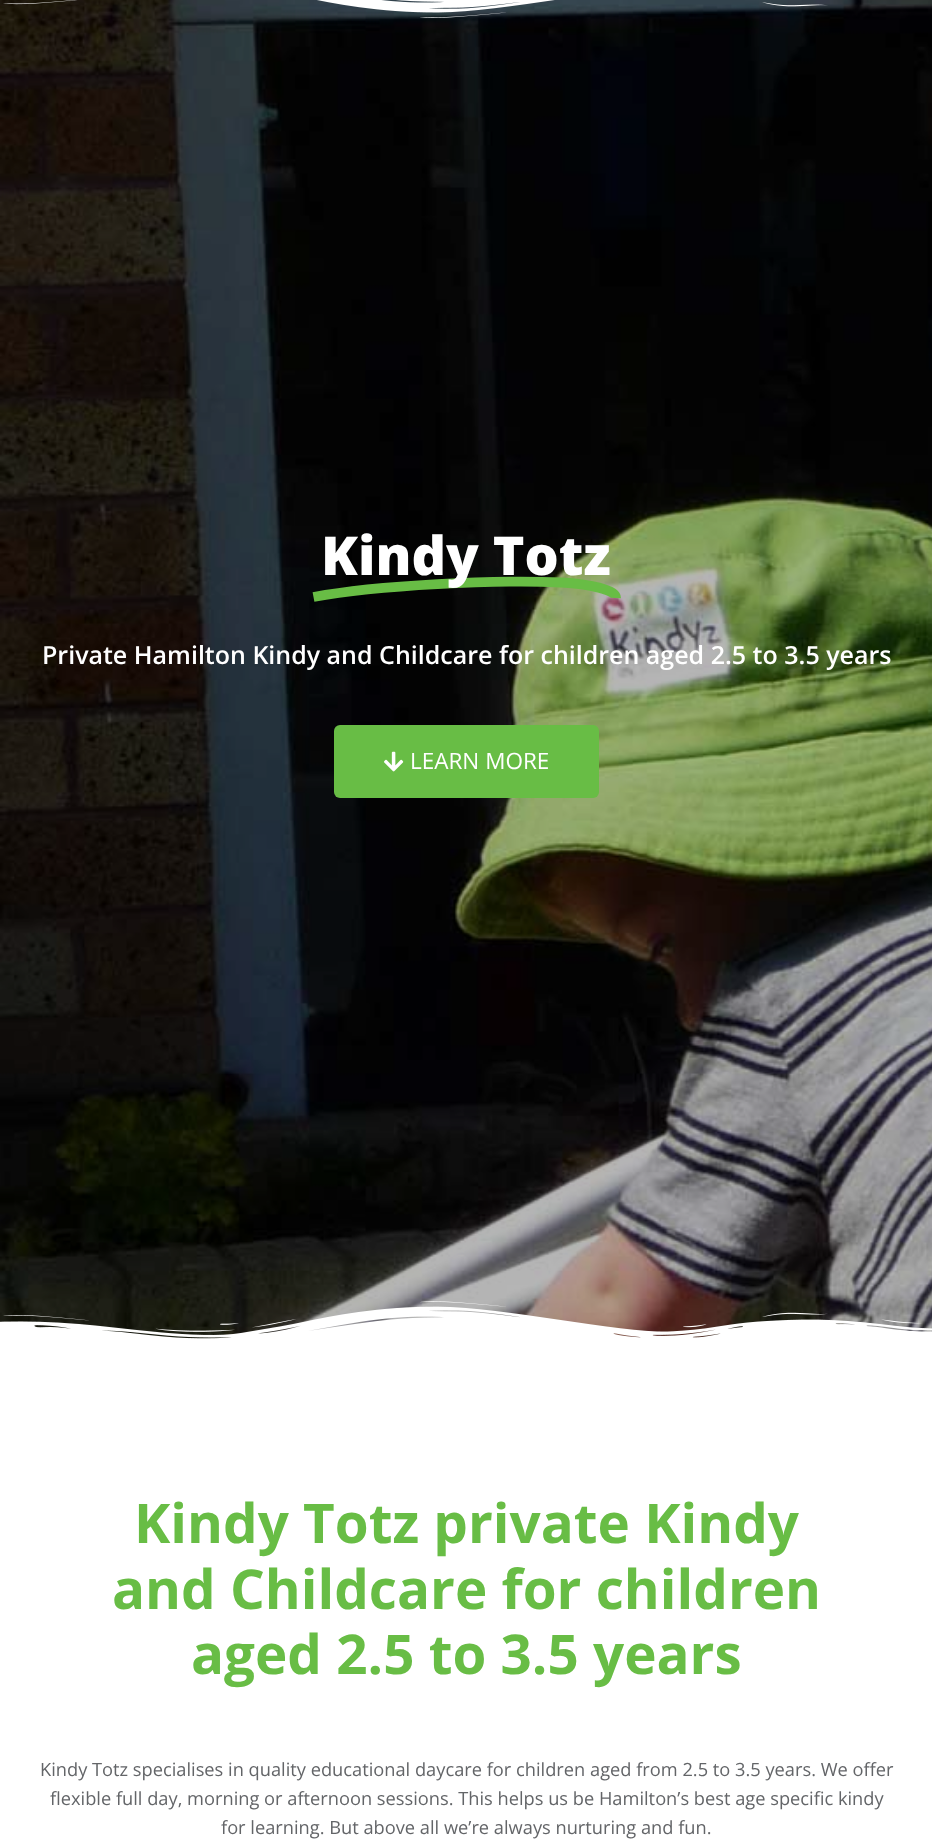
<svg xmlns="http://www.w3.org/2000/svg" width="932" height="1847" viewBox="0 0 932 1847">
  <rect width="100%" height="100%" fill="#fff"/>
  <image x="0" y="0" width="932" height="1339" href="img/1.png"/>
  <image x="3" y="0" width="825" height="18" href="img/2.png"/>
  <path d="M313.5 597C377.5 585 497.5 579.5 561.5 582.5C588 584 616.5 589.5 616 598" fill="none" stroke="#68bd45" stroke-width="9.8"/>
  <rect x="334" y="725" width="265" height="73" rx="6" fill="#68bd45"/>
  <image x="384" y="751" width="20" height="21" href="img/3.png"/>
  <image x="0" y="1301" width="932" height="43" href="img/4.png"/>
  <text x="321" y="575" font-family="Open Sans" font-size="53.75" font-weight="800" fill="#fff">Kindy Totz</text>
  <text x="42" y="664" font-family="Open Sans" font-size="25" font-weight="600" fill="#fff">Private Hamilton Kindy and Childcare for children aged 2.5 to 3.5 years</text>
  <text x="410" y="769" font-family="Open Sans" font-size="22.5" fill="#fff">LEARN MORE</text>
  <g font-family="Open Sans" font-size="54.75" font-weight="bold" fill="#68bd45">
    <text x="134" y="1543">Kindy Totz private Kindy</text>
    <text x="112" y="1609">and Childcare for children</text>
    <text x="191" y="1674">aged 2.5 to 3.5 years</text>
  </g>
  <g font-family="Open Sans" font-size="18.25" fill="#636568">
    <text x="40" y="1776">Kindy Totz specialises in quality educational daycare for children aged from 2.5 to 3.5 years. We offer</text>
    <text x="50" y="1805">flexible full day, morning or afternoon sessions. This helps us be Hamilton’s best age specific kindy</text>
    <text x="221" y="1834">for learning. But above all we’re always nurturing and fun.</text>
  </g>
</svg>
